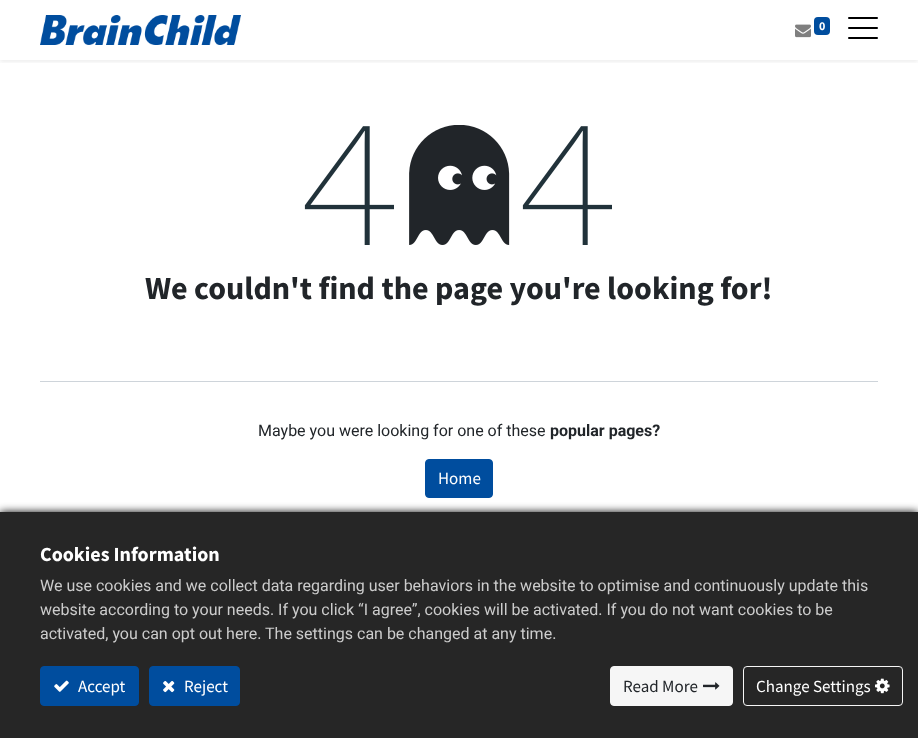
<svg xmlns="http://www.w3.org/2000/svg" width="918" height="738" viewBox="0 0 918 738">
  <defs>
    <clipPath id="clip1"><path d="M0 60h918v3H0z"/></clipPath>
  </defs>
  <rect width="100%" height="100%" fill="#fff"/>
  <g clip-path="url(#clip1)">
    <path d="M0 2h918v60H0z" fill="#00000012" filter="blur(2px)"/>
  </g>
  <image x="40" y="15" width="201" height="30" href="img/1.png"/>
  <image x="795" y="24" width="16" height="14" href="img/2.png"/>
  <rect x="814" y="17" width="16" height="18" rx="4" fill="#004d9e"/>
  <rect x="848" y="17" width="30" height="2" rx="1" fill="#000"/>
  <rect x="848" y="27" width="30" height="2" rx="1" fill="#000"/>
  <rect x="848" y="37" width="30" height="2" rx="1" fill="#000"/>
  <image x="304" y="125" width="308" height="120" href="img/3.png"/>
  <path d="M40 381h838v1H40z" fill="#ced4da"/>
  <rect x="425.5" y="459.5" width="67" height="38" rx="3.5" fill="#004d9e" stroke="#004d9e"/>
  <path d="M0 512h918v226H0z" fill="#000" filter="blur(4px)"/>
  <path d="M0 512h918v226H0z" fill="#262626"/>
  <rect x="40.5" y="666.5" width="98" height="39" rx="3.5" fill="#004d9e" stroke="#004d9e"/>
  <image x="54" y="680" width="15" height="12" href="img/4.png"/>
  <rect x="149.5" y="666.5" width="90" height="39" rx="3.5" fill="#004d9e" stroke="#004d9e"/>
  <image x="163" y="681" width="12" height="12" href="img/5.png"/>
  <rect x="610.5" y="666.5" width="122" height="39" rx="3.5" fill="#f6f6f6" stroke="#f6f6f6"/>
  <image x="703" y="682" width="17" height="8" href="img/6.png"/>
  <rect x="743.5" y="666.5" width="159" height="39" rx="3.5" fill="none" stroke="#f6f6f6"/>
  <image x="875" y="678" width="15" height="16" href="img/7.png"/>
  <text x="819" y="30" font-family="Source Sans Pro" font-size="12" font-weight="bold" fill="#fff">0</text>
  <text x="145" y="299" font-family="Source Sans Pro" font-size="32.1" font-weight="bold" fill="#212529">We couldn't find the page you're looking for!</text>
  <text x="258" y="436" font-family="Roboto" font-size="16" fill="#212529">Maybe you were looking for one of these</text>
  <text x="550" y="436" font-family="Roboto" font-size="16" font-weight="bold" fill="#212529">popular pages?</text>
  <text x="438" y="484" font-family="Source Sans Pro" font-size="17" fill="#fff">Home</text>
  <text x="40" y="561" font-family="Source Sans Pro" font-size="20" font-weight="bold" fill="#fff">Cookies Information</text>
  <g font-family="Roboto" font-size="16" fill="#ccc">
    <text x="40" y="591">We use cookies and we collect data regarding user behaviors in the website to optimise and continuously update this</text>
    <text x="40" y="615">website according to your needs. If you click “I agree”, cookies will be activated. If you do not want cookies to be</text>
    <text x="40" y="639">activated, you can opt out here. The settings can be changed at any time.</text>
  </g>
  <g font-family="Source Sans Pro" font-size="17" fill="#fff">
    <text x="78" y="692">Accept</text>
    <text x="184" y="692">Reject</text>
  </g>
  <text x="623" y="692" font-family="Source Sans Pro" font-size="17" fill="#212529">Read More</text>
  <text x="756" y="692" font-family="Source Sans Pro" font-size="17" fill="#fff">Change Settings</text>
</svg>
